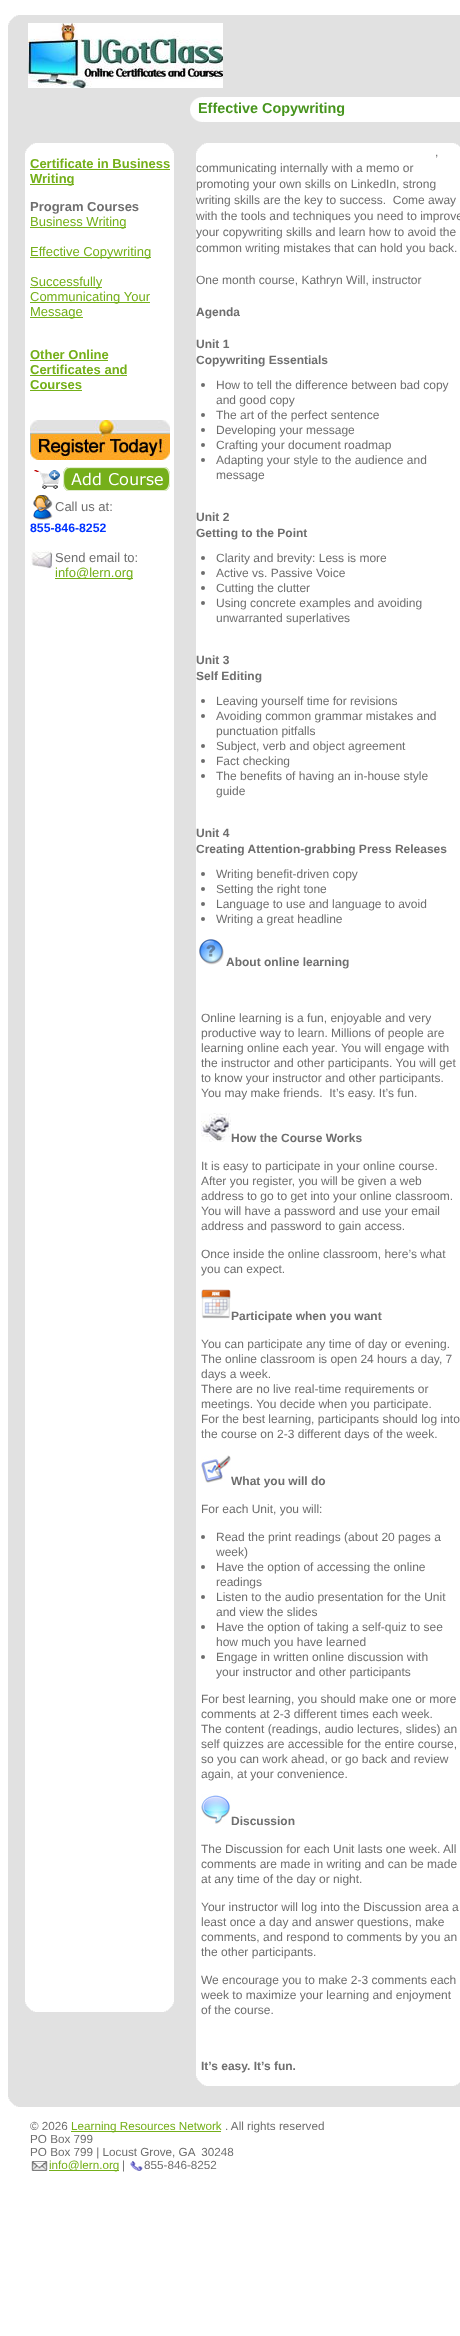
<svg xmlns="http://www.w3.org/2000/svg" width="460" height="2336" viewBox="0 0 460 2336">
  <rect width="100%" height="100%" fill="#fff"/>
  <path d="M8 25h452v2072H8z" fill="#e1e1e1"/>
  <path d="M18 15h442v1H18z" fill="#e1e1e1"/>
  <path d="M16 15h2v1H16z" fill="#f0f0f0"/>
  <path d="M16 16h444v1H16z" fill="#e1e1e1"/>
  <path d="M14 16h2v1H14z" fill="#f0f0f0"/>
  <path d="M14 17h446v1H14z" fill="#e1e1e1"/>
  <path d="M13 17h1v1H13z" fill="#f0f0f0"/>
  <path d="M13 18h447v1H13z" fill="#e1e1e1"/>
  <path d="M12 18h1v1H12z" fill="#f0f0f0"/>
  <path d="M12 19h448v1H12z" fill="#e1e1e1"/>
  <path d="M11 19h1v1H11z" fill="#f0f0f0"/>
  <path d="M11 20h449v1H11z" fill="#e1e1e1"/>
  <path d="M10 20h1v1H10z" fill="#f0f0f0"/>
  <path d="M10 21h450v2H10z" fill="#e1e1e1"/>
  <path d="M9 21h1v2H9z" fill="#f0f0f0"/>
  <path d="M9 23h451v2H9z" fill="#e1e1e1"/>
  <path d="M8 23h1v2H8z" fill="#f0f0f0"/>
  <image x="190" y="97" width="270" height="25" href="img/1.png"/>
  <image x="28" y="23" width="195" height="65" href="img/2.png"/>
  <path d="M25 153h149v1849H25z" fill="#fff"/>
  <path d="M35 143h129v1H35z" fill="#fff"/>
  <path d="M164 143h2v1H164z" fill="#f0f0f0"/>
  <path d="M33 143h2v1H33z" fill="#f0f0f0"/>
  <path d="M33 144h133v1H33z" fill="#fff"/>
  <path d="M166 144h2v1H166z" fill="#f0f0f0"/>
  <path d="M31 144h2v1H31z" fill="#f0f0f0"/>
  <path d="M31 145h137v1H31z" fill="#fff"/>
  <path d="M168 145h1v1H168z" fill="#f0f0f0"/>
  <path d="M30 145h1v1H30z" fill="#f0f0f0"/>
  <path d="M30 146h139v1H30z" fill="#fff"/>
  <path d="M169 146h1v1H169z" fill="#f0f0f0"/>
  <path d="M29 146h1v1H29z" fill="#f0f0f0"/>
  <path d="M29 147h141v1H29z" fill="#fff"/>
  <path d="M170 147h1v1H170z" fill="#f0f0f0"/>
  <path d="M28 147h1v1H28z" fill="#f0f0f0"/>
  <path d="M28 148h143v1H28z" fill="#fff"/>
  <path d="M171 148h1v1H171z" fill="#f0f0f0"/>
  <path d="M27 148h1v1H27z" fill="#f0f0f0"/>
  <path d="M27 149h145v2H27z" fill="#fff"/>
  <path d="M172 149h1v2H172z" fill="#f0f0f0"/>
  <path d="M26 149h1v2H26z" fill="#f0f0f0"/>
  <path d="M26 151h147v2H26z" fill="#fff"/>
  <path d="M173 151h1v2H173z" fill="#f0f0f0"/>
  <path d="M25 151h1v2H25z" fill="#f0f0f0"/>
  <path d="M30 169h140v1H30z" fill="#74af19"/>
  <path d="M30 184h44v1H30z" fill="#74af19"/>
  <path d="M30 227h96v1H30z" fill="#74af19"/>
  <path d="M30 257h121v1H30z" fill="#74af19"/>
  <path d="M30 287h72v1H30z" fill="#74af19"/>
  <path d="M30 302h120v1H30z" fill="#74af19"/>
  <path d="M30 317h53v1H30z" fill="#74af19"/>
  <path d="M30 360h78v1H30z" fill="#74af19"/>
  <path d="M30 375h97v1H30z" fill="#74af19"/>
  <path d="M30 390h52v1H30z" fill="#74af19"/>
  <image x="30" y="420" width="140" height="40" href="img/3.png"/>
  <image x="34" y="467" width="136" height="24" href="img/4.png"/>
  <image x="33" y="495" width="20" height="25" href="img/5.png"/>
  <image x="30" y="550" width="24" height="20" href="img/6.png"/>
  <path d="M55 578h78v1H55z" fill="#74af19"/>
  <path d="M26 2002h147v2H26z" fill="#fff"/>
  <path d="M173 2002h1v2H173z" fill="#f0f0f0"/>
  <path d="M25 2002h1v2H25z" fill="#f0f0f0"/>
  <path d="M27 2004h145v2H27z" fill="#fff"/>
  <path d="M172 2004h1v2H172z" fill="#f0f0f0"/>
  <path d="M26 2004h1v2H26z" fill="#f0f0f0"/>
  <path d="M28 2006h143v1H28z" fill="#fff"/>
  <path d="M171 2006h1v1H171z" fill="#f0f0f0"/>
  <path d="M27 2006h1v1H27z" fill="#f0f0f0"/>
  <path d="M29 2007h141v1H29z" fill="#fff"/>
  <path d="M170 2007h1v1H170z" fill="#f0f0f0"/>
  <path d="M28 2007h1v1H28z" fill="#f0f0f0"/>
  <path d="M30 2008h139v1H30z" fill="#fff"/>
  <path d="M169 2008h1v1H169z" fill="#f0f0f0"/>
  <path d="M29 2008h1v1H29z" fill="#f0f0f0"/>
  <path d="M31 2009h137v1H31z" fill="#fff"/>
  <path d="M168 2009h1v1H168z" fill="#f0f0f0"/>
  <path d="M30 2009h1v1H30z" fill="#f0f0f0"/>
  <path d="M33 2010h133v1H33z" fill="#fff"/>
  <path d="M166 2010h2v1H166z" fill="#f0f0f0"/>
  <path d="M31 2010h2v1H31z" fill="#f0f0f0"/>
  <path d="M35 2011h129v1H35z" fill="#fff"/>
  <path d="M164 2011h2v1H164z" fill="#f0f0f0"/>
  <path d="M33 2011h2v1H33z" fill="#f0f0f0"/>
  <path d="M196 153h264v1923H196z" fill="#fff"/>
  <path d="M206 143h248v1H206z" fill="#fff"/>
  <path d="M454 143h2v1H454z" fill="#f0f0f0"/>
  <path d="M204 143h2v1H204z" fill="#f0f0f0"/>
  <path d="M204 144h252v1H204z" fill="#fff"/>
  <path d="M456 144h2v1H456z" fill="#f0f0f0"/>
  <path d="M202 144h2v1H202z" fill="#f0f0f0"/>
  <path d="M202 145h256v1H202z" fill="#fff"/>
  <path d="M458 145h1v1H458z" fill="#f0f0f0"/>
  <path d="M201 145h1v1H201z" fill="#f0f0f0"/>
  <path d="M201 146h258v1H201z" fill="#fff"/>
  <path d="M459 146h1v1H459z" fill="#f0f0f0"/>
  <path d="M200 146h1v1H200z" fill="#f0f0f0"/>
  <path d="M200 147h260v1H200z" fill="#fff"/>
  <path d="M199 147h1v1H199z" fill="#f0f0f0"/>
  <path d="M199 148h261v1H199z" fill="#fff"/>
  <path d="M198 148h1v1H198z" fill="#f0f0f0"/>
  <path d="M198 149h262v2H198z" fill="#fff"/>
  <path d="M197 149h1v2H197z" fill="#f0f0f0"/>
  <path d="M197 151h263v2H197z" fill="#fff"/>
  <path d="M196 151h1v2H196z" fill="#f0f0f0"/>
  <circle cx="203" cy="385" r="2" fill="#6e6e6e"/>
  <circle cx="203" cy="415" r="2" fill="#6e6e6e"/>
  <circle cx="203" cy="430" r="2" fill="#6e6e6e"/>
  <circle cx="203" cy="445" r="2" fill="#6e6e6e"/>
  <circle cx="203" cy="460" r="2" fill="#6e6e6e"/>
  <circle cx="203" cy="558" r="2" fill="#6e6e6e"/>
  <circle cx="203" cy="573" r="2" fill="#6e6e6e"/>
  <circle cx="203" cy="588" r="2" fill="#6e6e6e"/>
  <circle cx="203" cy="603" r="2" fill="#6e6e6e"/>
  <circle cx="203" cy="701" r="2" fill="#6e6e6e"/>
  <circle cx="203" cy="716" r="2" fill="#6e6e6e"/>
  <circle cx="203" cy="746" r="2" fill="#6e6e6e"/>
  <circle cx="203" cy="761" r="2" fill="#6e6e6e"/>
  <circle cx="203" cy="776" r="2" fill="#6e6e6e"/>
  <circle cx="203" cy="874" r="2" fill="#6e6e6e"/>
  <circle cx="203" cy="889" r="2" fill="#6e6e6e"/>
  <circle cx="203" cy="904" r="2" fill="#6e6e6e"/>
  <circle cx="203" cy="919" r="2" fill="#6e6e6e"/>
  <image x="199" y="939" width="25" height="26" href="img/7.png"/>
  <image x="201" y="1113" width="30" height="29" href="img/8.png"/>
  <image x="201" y="1289" width="30" height="30" href="img/9.png"/>
  <image x="201" y="1455" width="30" height="28" href="img/10.png"/>
  <circle cx="203" cy="1537" r="2" fill="#6e6e6e"/>
  <circle cx="203" cy="1567" r="2" fill="#6e6e6e"/>
  <circle cx="203" cy="1597" r="2" fill="#6e6e6e"/>
  <circle cx="203" cy="1627" r="2" fill="#6e6e6e"/>
  <circle cx="203" cy="1657" r="2" fill="#6e6e6e"/>
  <image x="201" y="1794" width="30" height="30" href="img/11.png"/>
  <path d="M197 2076h263v2H197z" fill="#fff"/>
  <path d="M196 2076h1v2H196z" fill="#f0f0f0"/>
  <path d="M198 2078h262v2H198z" fill="#fff"/>
  <path d="M197 2078h1v2H197z" fill="#f0f0f0"/>
  <path d="M199 2080h261v1H199z" fill="#fff"/>
  <path d="M198 2080h1v1H198z" fill="#f0f0f0"/>
  <path d="M200 2081h260v1H200z" fill="#fff"/>
  <path d="M199 2081h1v1H199z" fill="#f0f0f0"/>
  <path d="M201 2082h258v1H201z" fill="#fff"/>
  <path d="M459 2082h1v1H459z" fill="#f0f0f0"/>
  <path d="M200 2082h1v1H200z" fill="#f0f0f0"/>
  <path d="M202 2083h256v1H202z" fill="#fff"/>
  <path d="M458 2083h1v1H458z" fill="#f0f0f0"/>
  <path d="M201 2083h1v1H201z" fill="#f0f0f0"/>
  <path d="M204 2084h252v1H204z" fill="#fff"/>
  <path d="M456 2084h2v1H456z" fill="#f0f0f0"/>
  <path d="M202 2084h2v1H202z" fill="#f0f0f0"/>
  <path d="M206 2085h248v1H206z" fill="#fff"/>
  <path d="M454 2085h2v1H454z" fill="#f0f0f0"/>
  <path d="M204 2085h2v1H204z" fill="#f0f0f0"/>
  <path d="M9 2097h451v2H9z" fill="#e1e1e1"/>
  <path d="M8 2097h1v2H8z" fill="#f0f0f0"/>
  <path d="M10 2099h450v2H10z" fill="#e1e1e1"/>
  <path d="M9 2099h1v2H9z" fill="#f0f0f0"/>
  <path d="M11 2101h449v1H11z" fill="#e1e1e1"/>
  <path d="M10 2101h1v1H10z" fill="#f0f0f0"/>
  <path d="M12 2102h448v1H12z" fill="#e1e1e1"/>
  <path d="M11 2102h1v1H11z" fill="#f0f0f0"/>
  <path d="M13 2103h447v1H13z" fill="#e1e1e1"/>
  <path d="M12 2103h1v1H12z" fill="#f0f0f0"/>
  <path d="M14 2104h446v1H14z" fill="#e1e1e1"/>
  <path d="M13 2104h1v1H13z" fill="#f0f0f0"/>
  <path d="M16 2105h444v1H16z" fill="#e1e1e1"/>
  <path d="M14 2105h2v1H14z" fill="#f0f0f0"/>
  <path d="M18 2106h442v1H18z" fill="#e1e1e1"/>
  <path d="M16 2106h2v1H16z" fill="#f0f0f0"/>
  <path d="M71 2131h150v1H71z" fill="#74af19"/>
  <image x="31" y="2161" width="17" height="10" href="img/12.png"/>
  <path d="M49 2170h70v1H49z" fill="#74af19"/>
  <image x="130" y="2161" width="13" height="10" href="img/13.png"/>
  <text x="198" y="113" font-family="Liberation Sans" font-size="14.4" font-weight="bold" fill="#47941d">Effective Copywriting</text>
  <g font-family="Liberation Sans" font-size="13" font-weight="bold" fill="#74af19">
    <text x="30" y="168">Certificate in Business</text>
    <text x="30" y="183">Writing</text>
  </g>
  <text x="30" y="211" font-family="Liberation Sans" font-size="13" font-weight="bold" fill="#6e6e6e">Program Courses</text>
  <g font-family="Liberation Sans" font-size="13" fill="#74af19">
    <text x="30" y="226">Business Writing</text>
    <text x="30" y="256">Effective Copywriting</text>
    <text x="30" y="286">Successfully</text>
    <text x="30" y="301">Communicating Your</text>
    <text x="30" y="316">Message</text>
  </g>
  <g font-family="Liberation Sans" font-size="13" font-weight="bold" fill="#74af19">
    <text x="30" y="359">Other Online</text>
    <text x="30" y="374">Certificates and</text>
    <text x="30" y="389">Courses</text>
  </g>
  <text x="55" y="511" font-family="Liberation Sans" font-size="13" fill="#6e6e6e">Call us at:</text>
  <text x="30" y="532" font-family="Liberation Sans" font-size="12.25" font-weight="bold" fill="#03f">855-846-8252</text>
  <text x="55" y="562" font-family="Liberation Sans" font-size="13" fill="#6e6e6e">Send email to:</text>
  <text x="55" y="577" font-family="Liberation Sans" font-size="13" fill="#74af19">info@lern.org</text>
  <g font-family="Liberation Sans" font-size="12" fill="#6e6e6e">
    <text x="435" y="156">,</text>
    <text x="196" y="172">communicating internally with a memo or</text>
    <text x="196" y="188">promoting your own skills on LinkedIn, strong</text>
    <text x="196" y="204" xml:space="preserve">writing skills are the key to success.  Come away</text>
    <text x="196" y="220">with the tools and techniques you need to improve</text>
    <text x="196" y="236">your copywriting skills and learn how to avoid the</text>
    <text x="196" y="252">common writing mistakes that can hold you back.</text>
    <text x="196" y="284">One month course, Kathryn Will, instructor</text>
  </g>
  <g font-family="Liberation Sans" font-size="12" font-weight="bold" fill="#6e6e6e">
    <text x="196" y="316">Agenda</text>
    <text x="196" y="348">Unit 1</text>
    <text x="196" y="364">Copywriting Essentials</text>
  </g>
  <g font-family="Liberation Sans" font-size="12" fill="#6e6e6e">
    <text x="216" y="389">How to tell the difference between bad copy</text>
    <text x="216" y="404">and good copy</text>
    <text x="216" y="419">The art of the perfect sentence</text>
    <text x="216" y="434">Developing your message</text>
    <text x="216" y="449">Crafting your document roadmap</text>
    <text x="216" y="464">Adapting your style to the audience and</text>
    <text x="216" y="479">message</text>
  </g>
  <g font-family="Liberation Sans" font-size="12" font-weight="bold" fill="#6e6e6e">
    <text x="196" y="521">Unit 2</text>
    <text x="196" y="537">Getting to the Point</text>
  </g>
  <g font-family="Liberation Sans" font-size="12" fill="#6e6e6e">
    <text x="216" y="562">Clarity and brevity: Less is more</text>
    <text x="216" y="577">Active vs. Passive Voice</text>
    <text x="216" y="592">Cutting the clutter</text>
    <text x="216" y="607">Using concrete examples and avoiding</text>
    <text x="216" y="622">unwarranted superlatives</text>
  </g>
  <g font-family="Liberation Sans" font-size="12" font-weight="bold" fill="#6e6e6e">
    <text x="196" y="664">Unit 3</text>
    <text x="196" y="680">Self Editing</text>
  </g>
  <g font-family="Liberation Sans" font-size="12" fill="#6e6e6e">
    <text x="216" y="705">Leaving yourself time for revisions</text>
    <text x="216" y="720">Avoiding common grammar mistakes and</text>
    <text x="216" y="735">punctuation pitfalls</text>
    <text x="216" y="750">Subject, verb and object agreement</text>
    <text x="216" y="765">Fact checking</text>
    <text x="216" y="780">The benefits of having an in-house style</text>
    <text x="216" y="795">guide</text>
  </g>
  <g font-family="Liberation Sans" font-size="12" font-weight="bold" fill="#6e6e6e">
    <text x="196" y="837">Unit 4</text>
    <text x="196" y="853">Creating Attention-grabbing Press Releases</text>
  </g>
  <g font-family="Liberation Sans" font-size="12" fill="#6e6e6e">
    <text x="216" y="878">Writing benefit-driven copy</text>
    <text x="216" y="893">Setting the right tone</text>
    <text x="216" y="908">Language to use and language to avoid</text>
    <text x="216" y="923">Writing a great headline</text>
  </g>
  <text x="226" y="966" font-family="Liberation Sans" font-size="12" font-weight="bold" fill="#6e6e6e">About online learning</text>
  <g font-family="Liberation Sans" font-size="12" fill="#6e6e6e">
    <text x="201" y="1022">Online learning is a fun, enjoyable and very</text>
    <text x="201" y="1037">productive way to learn. Millions of people are</text>
    <text x="201" y="1052">learning online each year. You will engage with</text>
    <text x="201" y="1067">the instructor and other participants. You will get</text>
    <text x="201" y="1082">to know your instructor and other participants.</text>
    <text x="201" y="1097" xml:space="preserve">You may make friends.  It’s easy. It’s fun.</text>
  </g>
  <text x="231" y="1142" font-family="Liberation Sans" font-size="12" font-weight="bold" fill="#6e6e6e">How the Course Works</text>
  <g font-family="Liberation Sans" font-size="12" fill="#6e6e6e">
    <text x="201" y="1170">It is easy to participate in your online course.</text>
    <text x="201" y="1185">After you register, you will be given a web</text>
    <text x="201" y="1200">address to go to get into your online classroom.</text>
    <text x="201" y="1215">You will have a password and use your email</text>
    <text x="201" y="1230">address and password to gain access.</text>
    <text x="201" y="1258">Once inside the online classroom, here’s what</text>
    <text x="201" y="1273">you can expect.</text>
  </g>
  <text x="231" y="1320" font-family="Liberation Sans" font-size="12" font-weight="bold" fill="#6e6e6e">Participate when you want</text>
  <g font-family="Liberation Sans" font-size="12" fill="#6e6e6e">
    <text x="201" y="1348">You can participate any time of day or evening.</text>
    <text x="201" y="1363">The online classroom is open 24 hours a day, 7</text>
    <text x="201" y="1378">days a week.</text>
    <text x="201" y="1393">There are no live real-time requirements or</text>
    <text x="201" y="1408">meetings. You decide when you participate.</text>
    <text x="201" y="1423">For the best learning, participants should log into</text>
    <text x="201" y="1438">the course on 2-3 different days of the week.</text>
  </g>
  <text x="231" y="1485" font-family="Liberation Sans" font-size="12" font-weight="bold" fill="#6e6e6e">What you will do</text>
  <g font-family="Liberation Sans" font-size="12" fill="#6e6e6e">
    <text x="201" y="1513">For each Unit, you will:</text>
    <text x="216" y="1541">Read the print readings (about 20 pages a</text>
    <text x="216" y="1556">week)</text>
    <text x="216" y="1571">Have the option of accessing the online</text>
    <text x="216" y="1586">readings</text>
    <text x="216" y="1601">Listen to the audio presentation for the Unit</text>
    <text x="216" y="1616">and view the slides</text>
    <text x="216" y="1631">Have the option of taking a self-quiz to see</text>
    <text x="216" y="1646">how much you have learned</text>
    <text x="216" y="1661">Engage in written online discussion with</text>
    <text x="216" y="1676">your instructor and other participants</text>
    <text x="201" y="1703">For best learning, you should make one or more</text>
    <text x="201" y="1718">comments at 2-3 different times each week.</text>
    <text x="201" y="1733">The content (readings, audio lectures, slides) an</text>
    <text x="201" y="1748">self quizzes are accessible for the entire course,</text>
    <text x="201" y="1763">so you can work ahead, or go back and review</text>
    <text x="201" y="1778">again, at your convenience.</text>
  </g>
  <text x="231" y="1825" font-family="Liberation Sans" font-size="12" font-weight="bold" fill="#6e6e6e">Discussion</text>
  <g font-family="Liberation Sans" font-size="12" fill="#6e6e6e">
    <text x="201" y="1853">The Discussion for each Unit lasts one week. All</text>
    <text x="201" y="1868">comments are made in writing and can be made</text>
    <text x="201" y="1883">at any time of the day or night.</text>
    <text x="201" y="1911">Your instructor will log into the Discussion area a</text>
    <text x="201" y="1926">least once a day and answer questions, make</text>
    <text x="201" y="1941">comments, and respond to comments by you an</text>
    <text x="201" y="1956">the other participants.</text>
    <text x="201" y="1984">We encourage you to make 2-3 comments each</text>
    <text x="201" y="1999">week to maximize your learning and enjoyment</text>
    <text x="201" y="2014">of the course.</text>
  </g>
  <text x="201" y="2070" font-family="Liberation Sans" font-size="12" font-weight="bold" fill="#6e6e6e">It’s easy. It’s fun.</text>
  <text x="30" y="2130" font-family="Liberation Sans" font-size="11.7" fill="#6e6e6e">© 2026</text>
  <text x="71" y="2130" font-family="Liberation Sans" font-size="11.7" fill="#74af19">Learning Resources Network</text>
  <g font-family="Liberation Sans" font-size="11.7" fill="#6e6e6e">
    <text x="225" y="2130">. All rights reserved</text>
    <text x="30" y="2143">PO Box 799</text>
    <text x="30" y="2156" xml:space="preserve">PO Box 799 | Locust Grove, GA  30248</text>
  </g>
  <text x="49" y="2169" font-family="Liberation Sans" font-size="11.7" fill="#74af19">info@lern.org</text>
  <g font-family="Liberation Sans" font-size="11.7" fill="#6e6e6e">
    <text x="122" y="2169">|</text>
    <text x="144" y="2169">855-846-8252</text>
  </g>
</svg>
